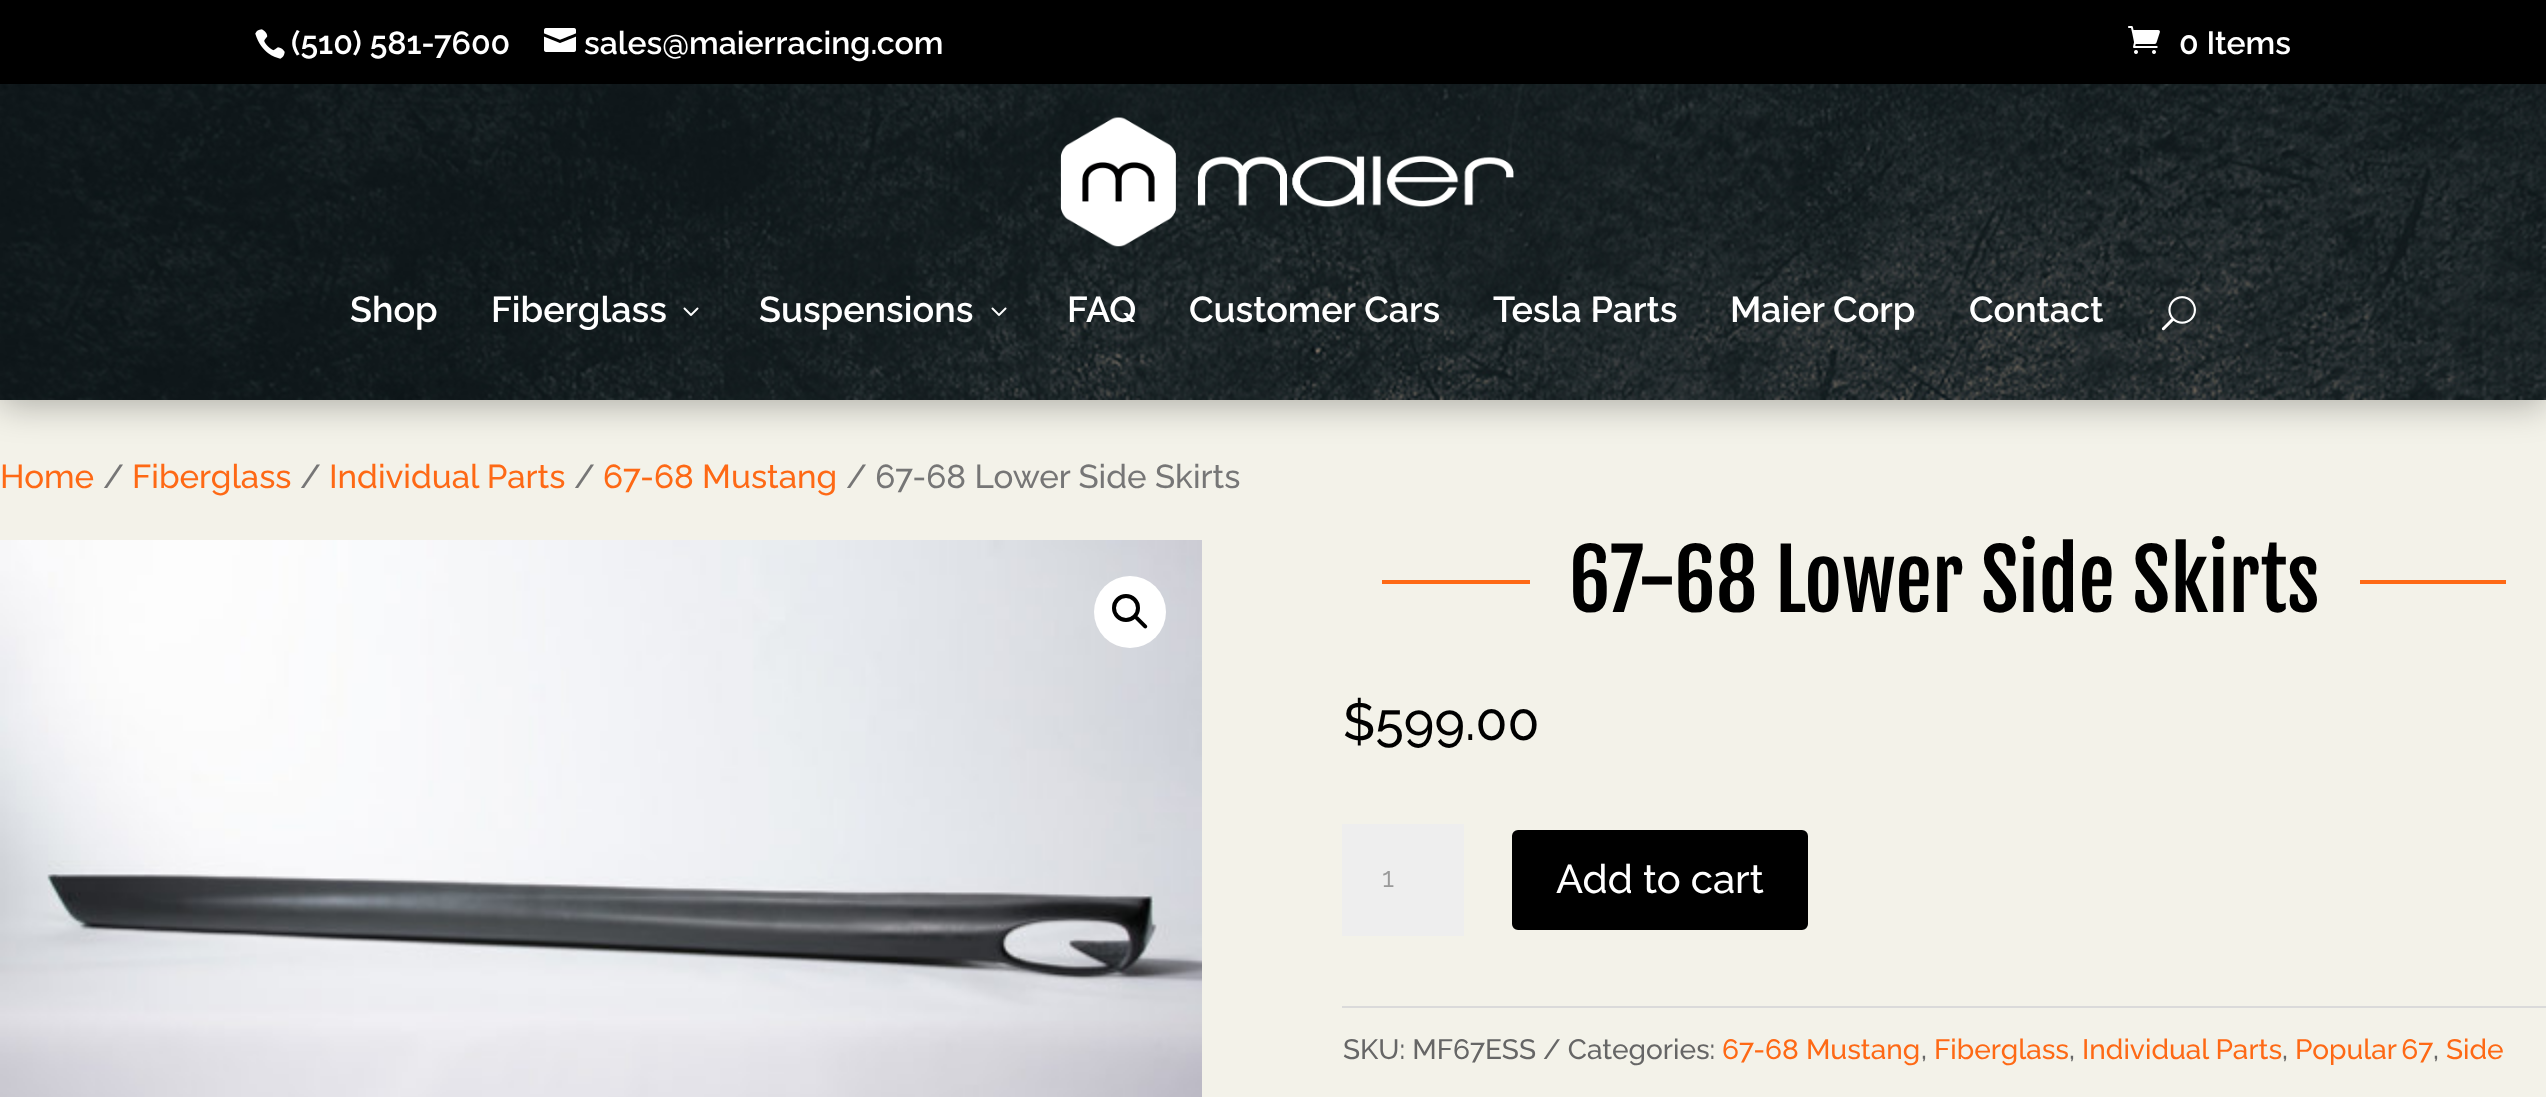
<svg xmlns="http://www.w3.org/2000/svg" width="2546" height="1097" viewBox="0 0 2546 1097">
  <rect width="100%" height="100%" fill="#f3f2e9"/>
  <path d="M0 88h2546v316H0z" fill="#0000004d" filter="blur(18px)"/>
  <path d="M0 0h2546v84H0z" fill="#000"/>
  <image x="255" y="29" width="30" height="30" href="img/1.png"/>
  <image x="544" y="28" width="32" height="24" href="img/2.png"/>
  <image x="2128" y="26" width="32" height="28" href="img/3.png"/>
  <image x="0" y="84" width="2546" height="316" href="img/4.png"/>
  <image x="1060" y="117" width="454" height="130" href="img/5.png"/>
  <image x="683" y="307" width="16" height="9" href="img/6.png"/>
  <image x="991" y="307" width="16" height="9" href="img/7.png"/>
  <image x="2161" y="296" width="35" height="35" href="img/8.png"/>
  <image x="0" y="540" width="1202" height="557" href="img/9.png"/>
  <circle cx="1130" cy="612" r="36" fill="#fff"/>
  <circle cx="1126" cy="608" r="12" fill="none" stroke="#000" stroke-width="4"/>
  <path d="M1135.5 616.5C1136 616 1137.5 616 1138 616.5L1146.5 625C1147.5 626 1147.5 627 1146.5 628C1146 628.5 1144.5 628.5 1144 628L1135.5 619.5C1134.5 618.5 1134.5 617.5 1135.5 616.5Z" fill="#000"/>
  <path d="M1382 580h148v4H1382z" fill="#fe6915"/>
  <path d="M2360 580h146v4H2360z" fill="#fe6915"/>
  <path d="M1342 824h122v112H1342z" fill="#eee"/>
  <rect x="1514" y="832" width="292" height="96" rx="4" fill="#000" stroke="#000" stroke-width="4"/>
  <path d="M1342 1006h1204v2H1342z" fill="#dadada"/>
  <g font-family="'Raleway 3'" font-size="32" font-weight="100" fill="#fff">
    <text x="291" y="54">(510) 581-7600</text>
    <text x="584" y="54">sales@maierracing.com</text>
    <text x="2179" y="54">0 Items</text>
  </g>
  <g font-family="'Raleway 3'" font-size="36" font-weight="100" fill="#fff">
    <text x="350" y="322">Shop</text>
    <text x="491" y="322">Fiberglass</text>
    <text x="759" y="322">Suspensions</text>
    <text x="1067" y="322">FAQ</text>
    <text x="1189" y="322">Customer Cars</text>
    <text x="1493" y="322">Tesla Parts</text>
    <text x="1730" y="322">Maier Corp</text>
    <text x="1969" y="322">Contact</text>
  </g>
  <text x="0" y="488" font-family="Raleway" font-size="33.1" font-weight="100" fill="#fe6915">Home</text>
  <text x="103" y="488" font-family="Raleway" font-size="33.1" font-weight="100" fill="#767676">/</text>
  <text x="132" y="488" font-family="Raleway" font-size="33.1" font-weight="100" fill="#fe6915">Fiberglass</text>
  <text x="300" y="488" font-family="Raleway" font-size="33.1" font-weight="100" fill="#767676">/</text>
  <text x="329" y="488" font-family="Raleway" font-size="33.1" font-weight="100" fill="#fe6915">Individual Parts</text>
  <text x="574" y="488" font-family="Raleway" font-size="33.1" font-weight="100" fill="#767676">/</text>
  <text x="603" y="488" font-family="Raleway" font-size="33.1" font-weight="100" fill="#fe6915">67-68 Mustang</text>
  <text x="846" y="488" font-family="Raleway" font-size="33.1" font-weight="100" fill="#767676">/ 67-68 Lower Side Skirts</text>
  <text x="1569" y="612" font-family="Fjalla One" font-size="82" fill="#000">67-68 Lower Side Skirts</text>
  <text x="1343" y="740" font-family="Raleway" font-size="52" font-weight="100" fill="#000">$599.00</text>
  <text x="1382" y="887" font-family="'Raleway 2'" font-size="28" font-weight="100" fill="#999">1</text>
  <text x="1556" y="893" font-family="Raleway" font-size="40" font-weight="100" fill="#fff">Add to cart</text>
  <text x="1343" y="1059" font-family="Raleway" font-size="28" font-weight="100" fill="#666">SKU: MF67ESS / Categories:</text>
  <text x="1722" y="1059" font-family="Raleway" font-size="28" font-weight="100" fill="#fe6915">67-68 Mustang</text>
  <text x="1921" y="1059" font-family="Raleway" font-size="28" font-weight="100" fill="#666">,</text>
  <text x="1934" y="1059" font-family="Raleway" font-size="28" font-weight="100" fill="#fe6915">Fiberglass</text>
  <text x="2069" y="1059" font-family="Raleway" font-size="28" font-weight="100" fill="#666">,</text>
  <text x="2082" y="1059" font-family="Raleway" font-size="28" font-weight="100" fill="#fe6915">Individual Parts</text>
  <text x="2282" y="1059" font-family="Raleway" font-size="28" font-weight="100" fill="#666">,</text>
  <text x="2295" y="1059" word-spacing="-2" font-family="Raleway" font-size="28" font-weight="100" fill="#fe6915">Popular 67</text>
  <text x="2433" y="1059" font-family="Raleway" font-size="28" font-weight="100" fill="#666">,</text>
  <text x="2446" y="1059" font-family="Raleway" font-size="28" font-weight="100" fill="#fe6915">Side</text>
</svg>
